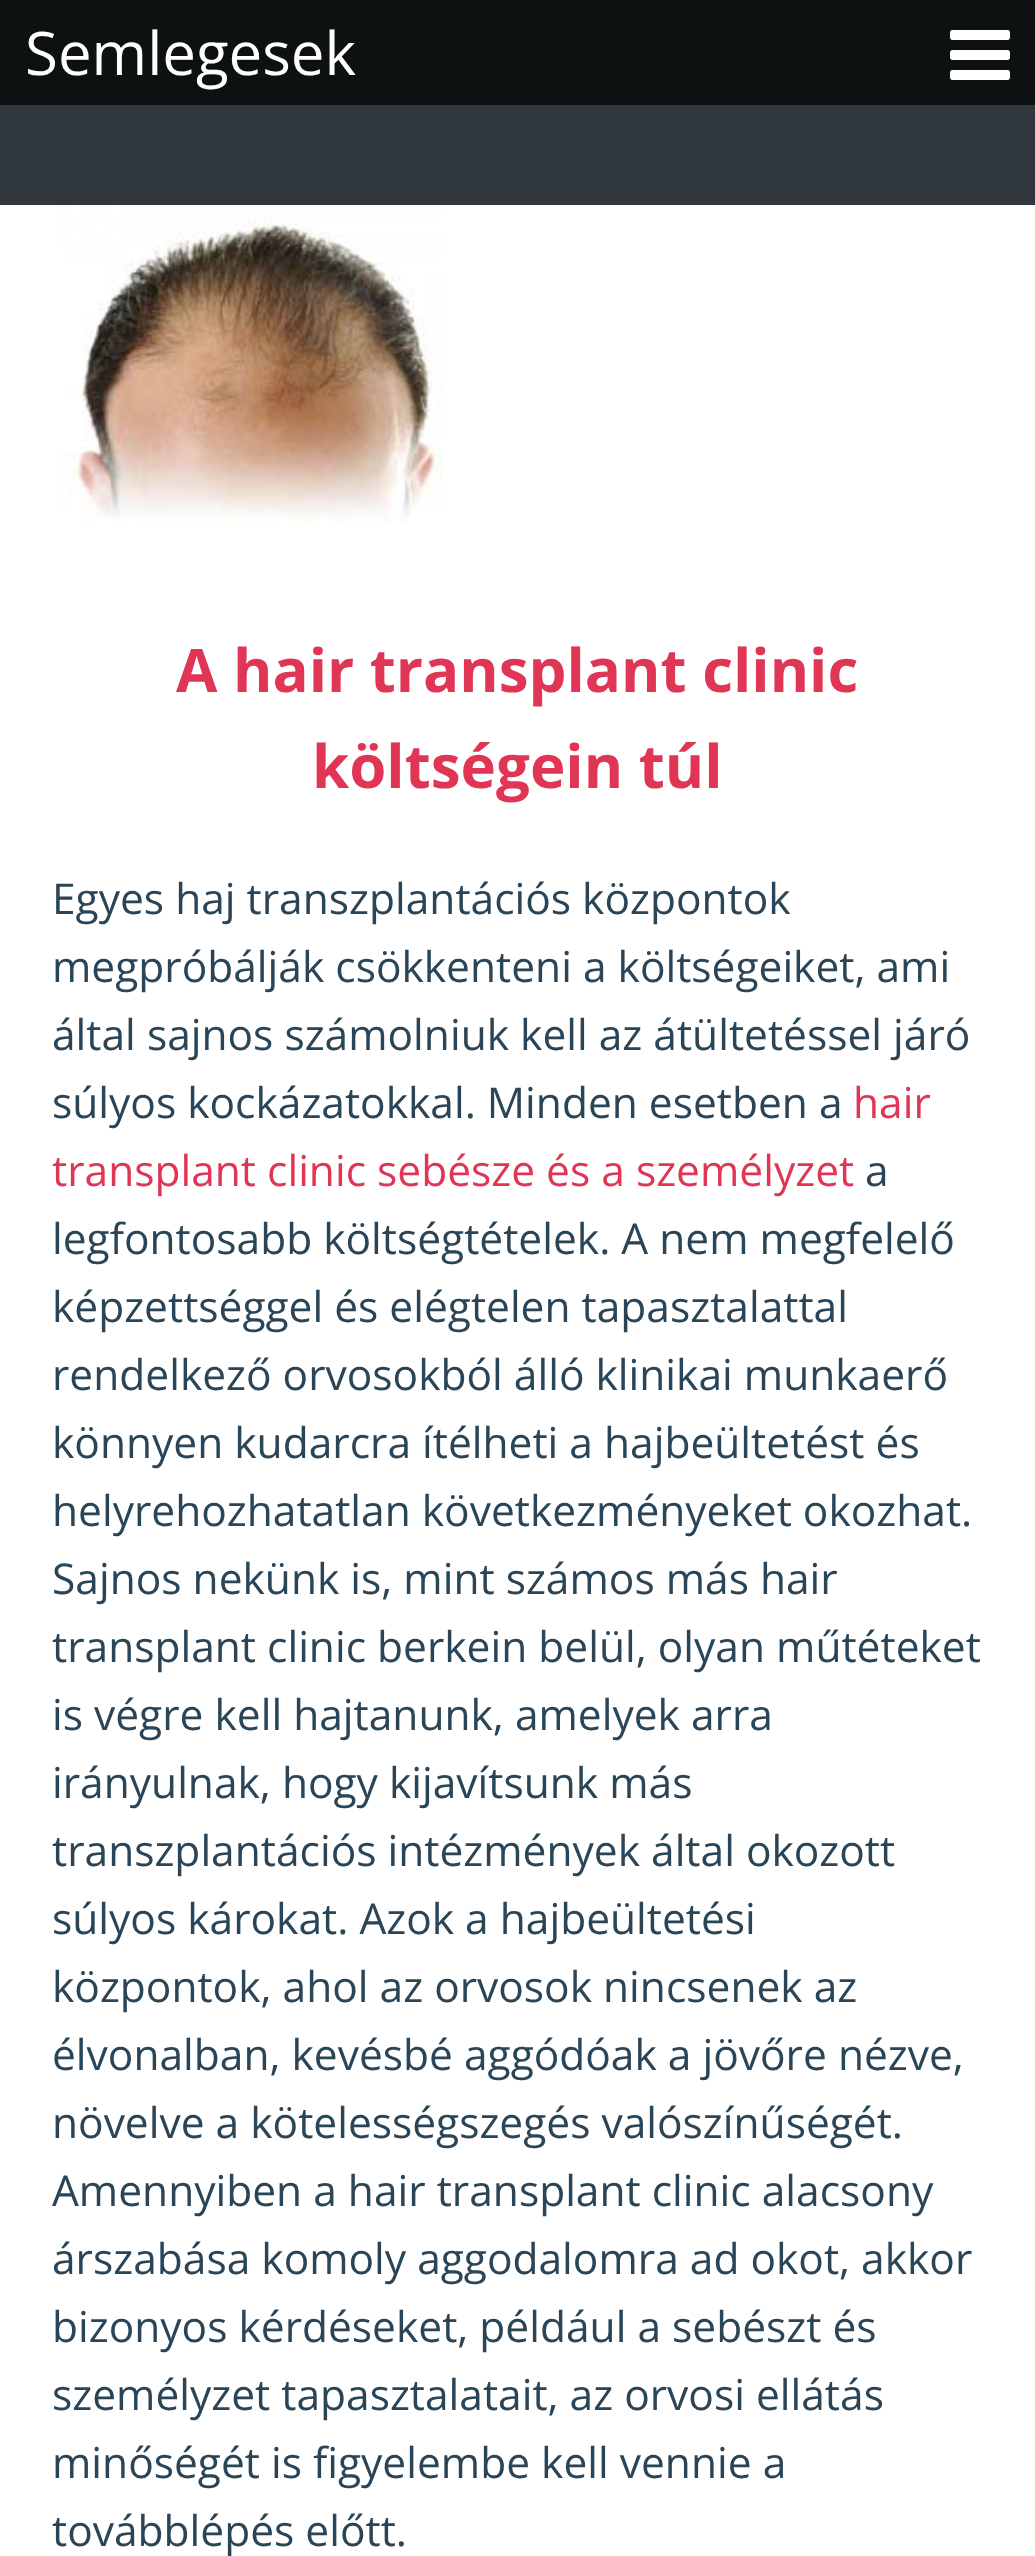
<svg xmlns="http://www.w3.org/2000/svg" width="1035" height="2556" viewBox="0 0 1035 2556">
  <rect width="100%" height="100%" fill="#30373d"/>
  <path d="M0 0h1035v105H0z" fill="#0e1112"/>
  <image x="950" y="30" width="60" height="50" href="img/1.png"/>
  <path d="M0 205h1035v2351H0z" fill="#fff"/>
  <image x="57" y="205" width="385" height="318" href="img/2.png"/>
  <text x="25" y="75" font-family="Open Sans" font-size="60" fill="#fff">Semlegesek</text>
  <g font-family="Open Sans" font-size="60" font-weight="bold" fill="#e03555">
    <text x="176" y="692">A hair transplant clinic</text>
    <text x="312" y="788">költségein túl</text>
  </g>
  <g font-family="Open Sans" font-size="42.5" fill="#2a4557">
    <text x="52" y="914">Egyes haj transzplantációs központok</text>
    <text x="52" y="982">megpróbálják csökkenteni a költségeiket, ami</text>
    <text x="52" y="1050">által sajnos számolniuk kell az átültetéssel járó</text>
    <text x="52" y="1118">súlyos kockázatokkal. Minden esetben a</text>
  </g>
  <g font-family="Open Sans" font-size="42.5" fill="#e03555">
    <text x="853" y="1118">hair</text>
    <text x="52" y="1186">transplant clinic sebésze és a személyzet</text>
  </g>
  <g font-family="Open Sans" font-size="42.5" fill="#2a4557">
    <text x="865" y="1186">a</text>
    <text x="52" y="1254">legfontosabb költségtételek. A nem megfelelő</text>
    <text x="52" y="1322">képzettséggel és elégtelen tapasztalattal</text>
    <text x="52" y="1390">rendelkező orvosokból álló klinikai munkaerő</text>
    <text x="52" y="1458">könnyen kudarcra ítélheti a hajbeültetést és</text>
    <text x="52" y="1526">helyrehozhatatlan következményeket okozhat.</text>
    <text x="52" y="1594">Sajnos nekünk is, mint számos más hair</text>
    <text x="52" y="1662">transplant clinic berkein belül, olyan műtéteket</text>
    <text x="52" y="1730">is végre kell hajtanunk, amelyek arra</text>
    <text x="52" y="1798">irányulnak, hogy kijavítsunk más</text>
    <text x="52" y="1866">transzplantációs intézmények által okozott</text>
    <text x="52" y="1934">súlyos károkat. Azok a hajbeültetési</text>
    <text x="52" y="2002">központok, ahol az orvosok nincsenek az</text>
    <text x="52" y="2070">élvonalban, kevésbé aggódóak a jövőre nézve,</text>
    <text x="52" y="2138">növelve a kötelességszegés valószínűségét.</text>
    <text x="52" y="2206">Amennyiben a hair transplant clinic alacsony</text>
    <text x="52" y="2274">árszabása komoly aggodalomra ad okot, akkor</text>
    <text x="52" y="2342">bizonyos kérdéseket, például a sebészt és</text>
    <text x="52" y="2410">személyzet tapasztalatait, az orvosi ellátás</text>
    <text x="52" y="2478">minőségét is figyelembe kell vennie a</text>
    <text x="52" y="2546">továbblépés előtt.</text>
  </g>
</svg>
